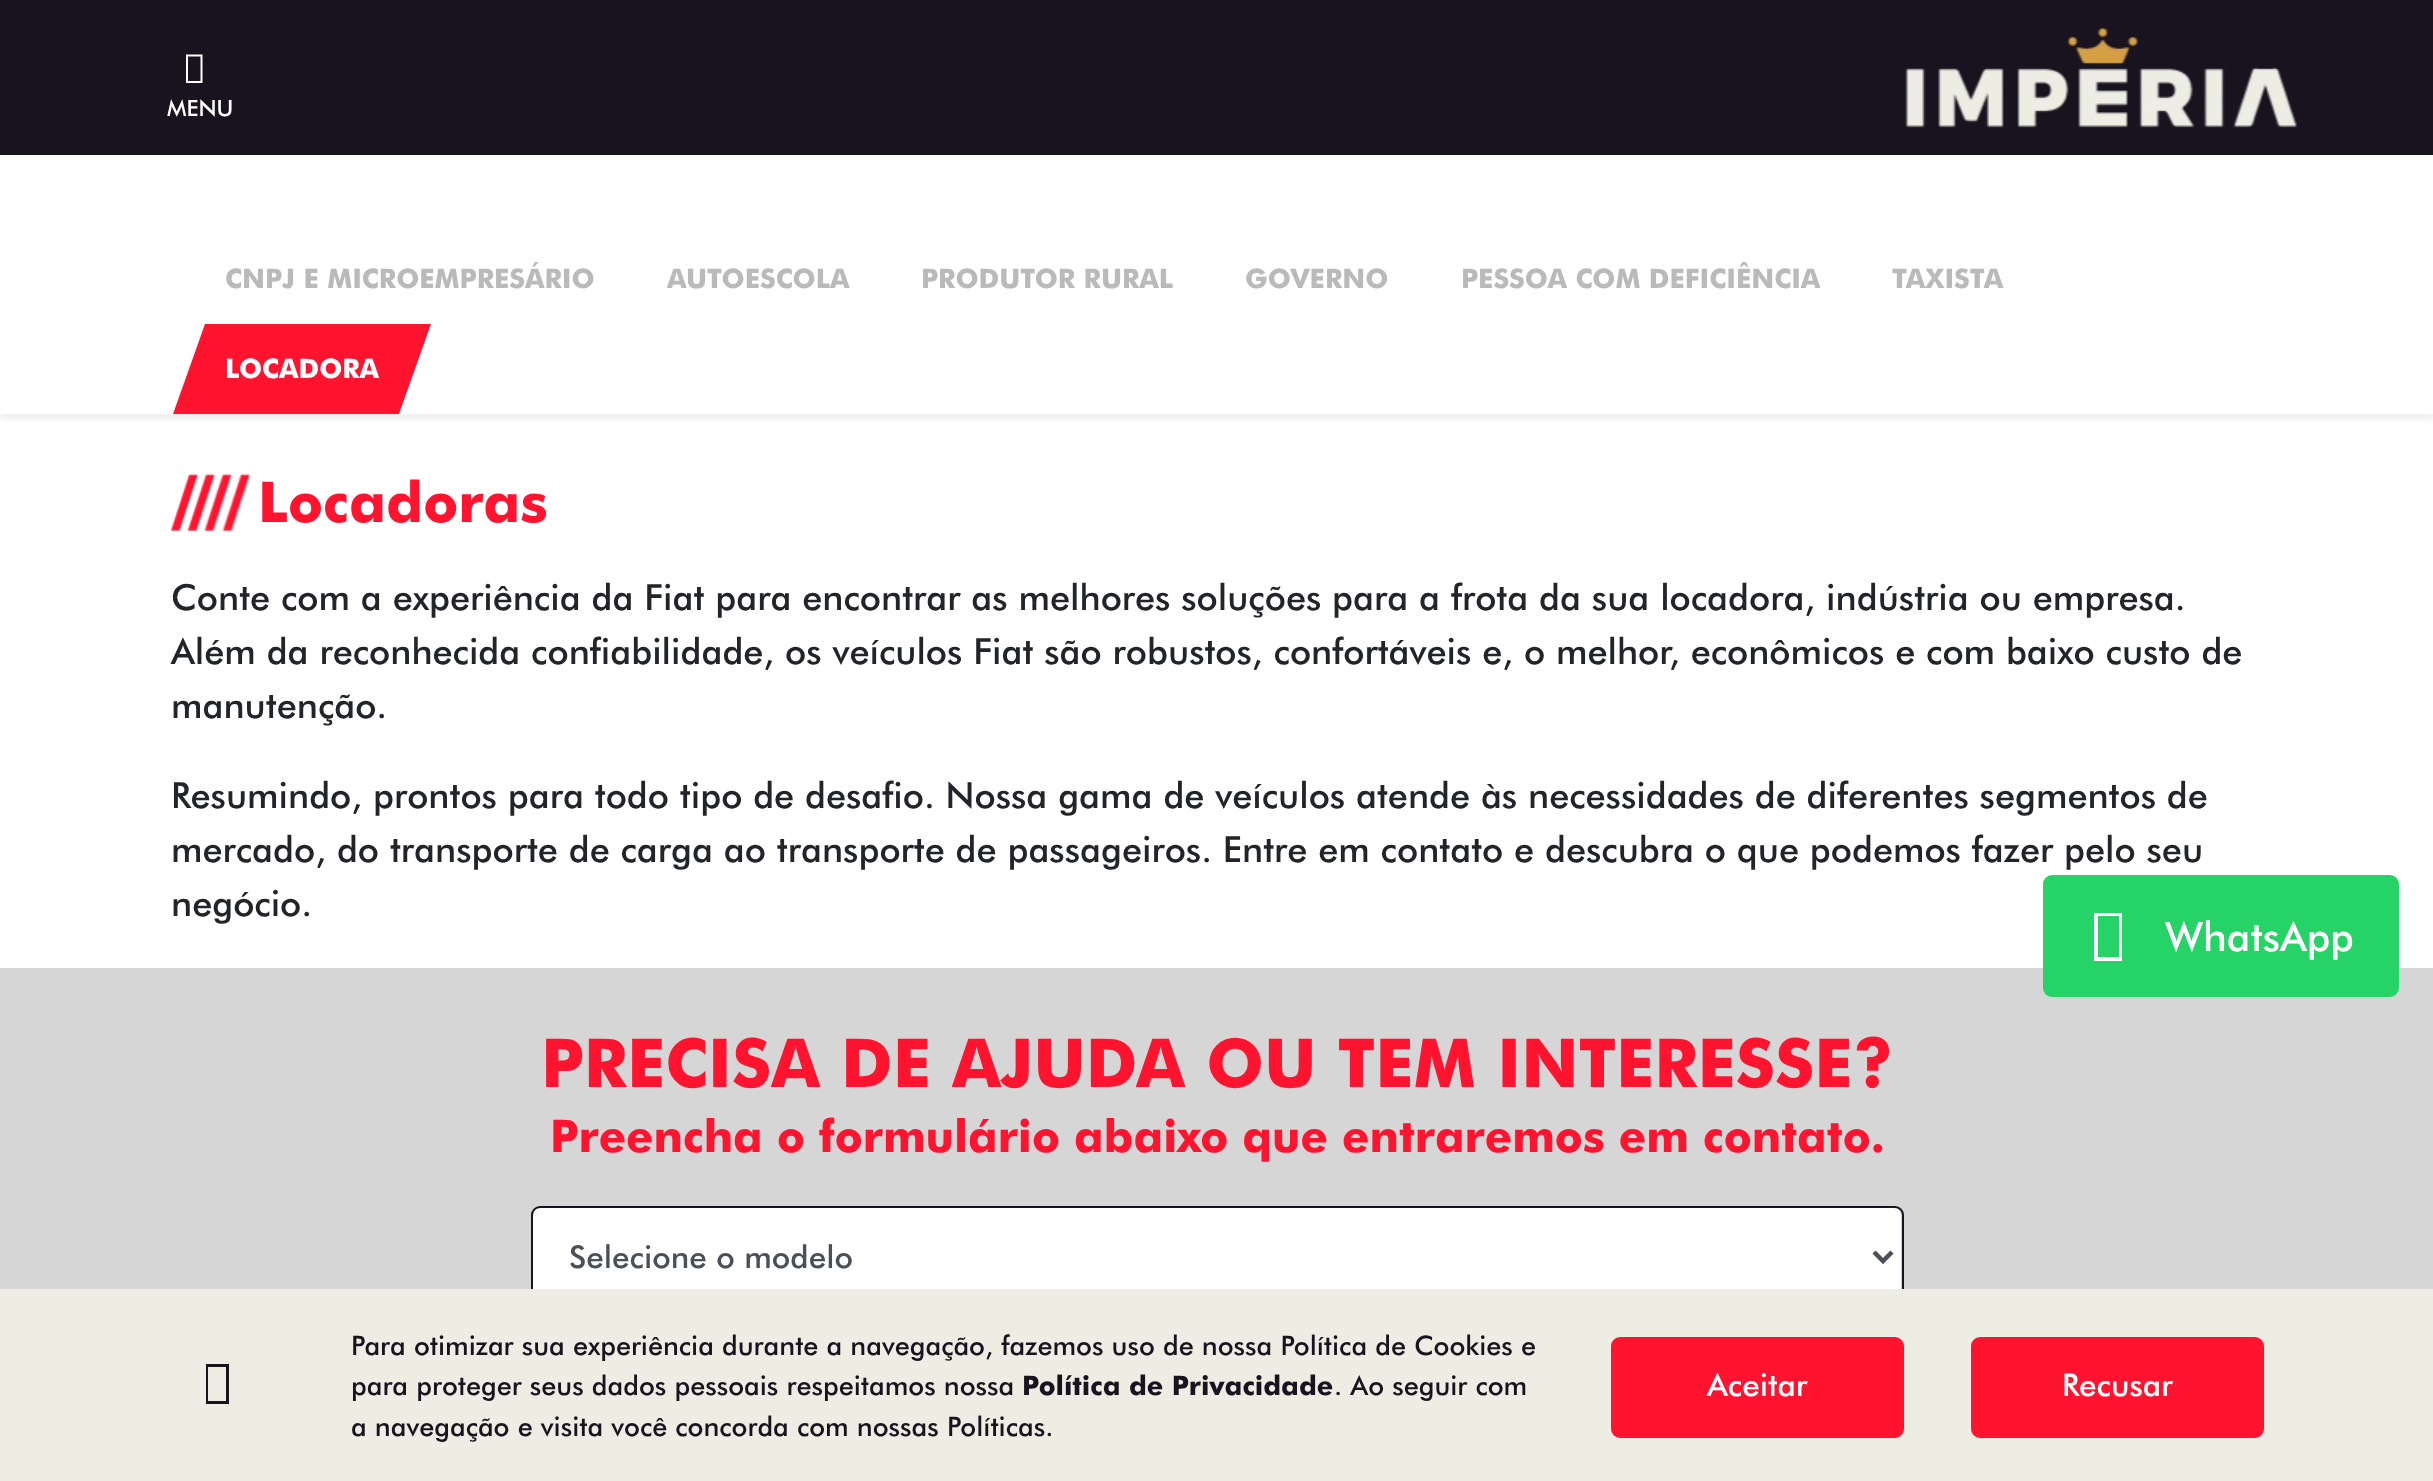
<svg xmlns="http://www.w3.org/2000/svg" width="2433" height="1481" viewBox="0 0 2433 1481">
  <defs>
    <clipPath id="clip1"><path d="M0 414h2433v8H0z"/></clipPath>
  </defs>
  <rect width="100%" height="100%" fill="#fff"/>
  <path d="M0 0h2433v155H0z" fill="#18131f"/>
  <path d="M186 83V54.5H202.5V83ZM188 81H200.5V56.5H188Z" fill="#fff"/>
  <image x="1905" y="28" width="392" height="100" href="img/1.png"/>
  <g clip-path="url(#clip1)">
    <path d="M0 203h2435v216H0z" fill="#00000012" filter="blur(4.5px)"/>
  </g>
  <path d="M205 324H431L399 414H173Z" fill="#ff1430"/>
  <image x="171" y="473" width="79" height="58" href="img/2.png"/>
  <path d="M0 968h2433v321H0z" fill="#d6d6d6"/>
  <rect x="533" y="1208" width="1368" height="97" rx="7" fill="#fff"/>
  <rect x="532" y="1207" width="1371" height="99" rx="8" fill="none" stroke="#18131f" stroke-width="2"/>
  <path d="M1874 1252L1883 1261L1892 1252" fill="none" stroke="#495057" stroke-width="4.5"/>
  <rect x="2043" y="875" width="356" height="122" rx="9" fill="#25d366"/>
  <path d="M2094 961V913H2122V961ZM2098 957H2119V916H2098Z" fill="#fff"/>
  <path d="M0 1289h2433v192H0z" fill="#edede3"/>
  <path d="M206 1404V1364H229V1404ZM208 1401H226V1367H208Z" fill="#18131f"/>
  <rect x="1612" y="1338" width="291" height="99" rx="8" fill="#ff1430" stroke="#ff1430" stroke-width="2"/>
  <rect x="1972" y="1338" width="291" height="99" rx="8" fill="#ff1430" stroke="#ff1430" stroke-width="2"/>
  <text x="167" y="116" font-family="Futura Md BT" font-size="22.5" font-weight="500" fill="#fff">MENU</text>
  <g font-family="Futura Md BT" font-size="27" font-weight="bold" fill="#bababa">
    <text x="225" y="288">CNPJ E MICROEMPRESÁRIO</text>
    <text x="667" y="288">AUTOESCOLA</text>
    <text x="921" y="288">PRODUTOR RURAL</text>
    <text x="1245" y="288">GOVERNO</text>
    <text x="1461" y="288">PESSOA COM DEFICIÊNCIA</text>
    <text x="1892" y="288">TAXISTA</text>
  </g>
  <text x="225" y="378" font-family="Futura Md BT" font-size="27" font-weight="bold" fill="#fff">LOCADORA</text>
  <text x="258" y="522" font-family="Futura Md BT" font-size="56.25" font-weight="bold" fill="#ff1430">Locadoras</text>
  <g font-family="Futura Md BT" font-size="36" font-weight="500" fill="#212529">
    <text x="171" y="610">Conte com a experiência da Fiat para encontrar as melhores soluções para a frota da sua locadora, indústria ou empresa.</text>
    <text x="171" y="664">Além da reconhecida confiabilidade, os veículos Fiat são robustos, confortáveis e, o melhor, econômicos e com baixo custo de</text>
    <text x="171" y="718">manutenção.</text>
    <text x="171" y="808">Resumindo, prontos para todo tipo de desafio. Nossa gama de veículos atende às necessidades de diferentes segmentos de</text>
    <text x="171" y="862">mercado, do transporte de carga ao transporte de passageiros. Entre em contato e descubra o que podemos fazer pelo seu</text>
    <text x="171" y="916">negócio.</text>
  </g>
  <text x="541" y="1087" font-family="Futura Md BT" font-size="67.5" font-weight="bold" fill="#ff1430">PRECISA DE AJUDA OU TEM INTERESSE?</text>
  <text x="550" y="1152" font-family="Futura Md BT" font-size="45" font-weight="bold" fill="#ff1430">Preencha o formulário abaixo que entraremos em contato.</text>
  <text x="569" y="1268" font-family="Futura Md BT" font-size="31.5" font-weight="500" fill="#495057">Selecione o modelo</text>
  <text x="2165" y="951" font-family="Futura Md BT" font-size="40.5" font-weight="500" fill="#fff">WhatsApp</text>
  <g font-family="Futura Md BT" font-size="27" font-weight="500" fill="#18131f">
    <text x="351" y="1355">Para otimizar sua experiência durante a navegação, fazemos uso de nossa Política de Cookies e</text>
    <text x="351" y="1395">para proteger seus dados pessoais respeitamos nossa</text>
  </g>
  <text x="1022" y="1395" font-family="Futura Md BT" font-size="27" font-weight="bold" fill="#18131f">Política de Privacidade</text>
  <g font-family="Futura Md BT" font-size="27" font-weight="500" fill="#18131f">
    <text x="1334" y="1395">. Ao seguir com</text>
    <text x="351" y="1436">a navegação e visita você concorda com nossas Políticas.</text>
  </g>
  <g font-family="Futura Md BT" font-size="31.5" font-weight="500" fill="#fff">
    <text x="1707" y="1396">Aceitar</text>
    <text x="2062" y="1396">Recusar</text>
  </g>
</svg>
